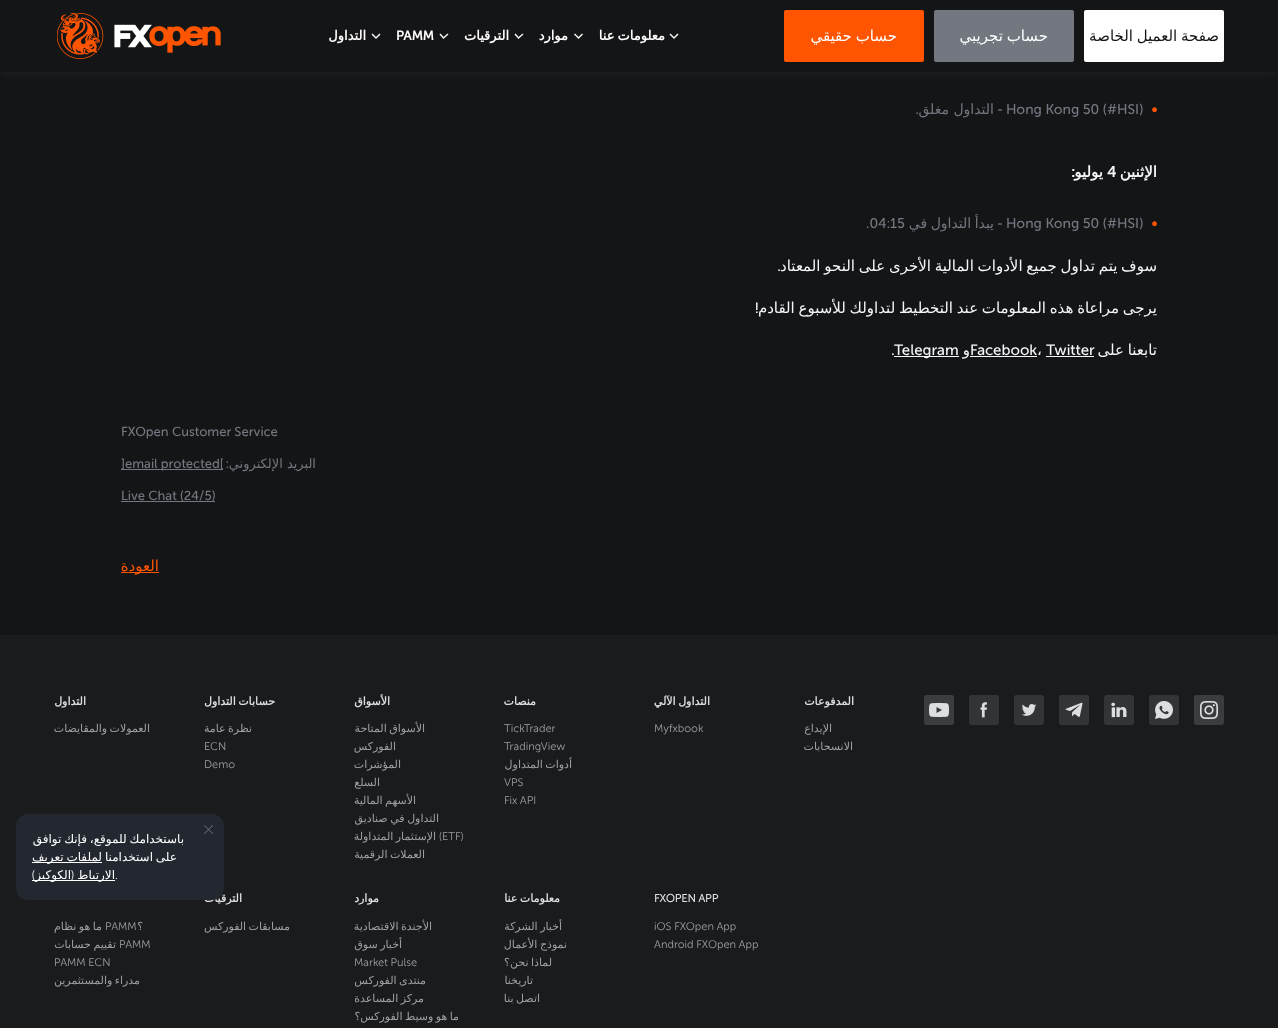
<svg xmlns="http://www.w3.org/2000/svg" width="1278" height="1028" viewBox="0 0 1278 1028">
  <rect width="100%" height="100%" fill="#141516"/>
  <path d="M0 0h1278v72H0z" fill="#777a7e29" filter="blur(5px)"/>
  <path d="M0 0h1278v72H0z" fill="#141516"/>
  <rect x="1084" y="10" width="140" height="52" rx="2" fill="#fff"/>
  <rect x="934" y="10" width="140" height="52" rx="2" fill="#737780"/>
  <rect x="784" y="10" width="140" height="52" rx="2" fill="#f50"/>
  <path d="M678 34L674 38L670 34" fill="none" stroke="#f3f3f2" stroke-width="1.5"/>
  <path d="M582.5 34L578.5 38L574.5 34" fill="none" stroke="#f3f3f2" stroke-width="1.5"/>
  <path d="M523 34L518.5 38L515 34" fill="none" stroke="#f3f3f2" stroke-width="1.5"/>
  <path d="M448 34L443.5 38L440 34" fill="none" stroke="#f3f3f2" stroke-width="1.5"/>
  <path d="M380 34L376 38L372 34" fill="none" stroke="#f3f3f2" stroke-width="1.5"/>
  <image x="57" y="13" width="164" height="46" href="img/1.png"/>
  <path d="M1046 356h48v1H1046z" fill="#f5f6f7"/>
  <path d="M970 356h67v1H970z" fill="#f5f6f7"/>
  <path d="M894 356h65v1H894z" fill="#f5f6f7"/>
  <path d="M121 469h102v1H121z" fill="#737780"/>
  <path d="M121 501h94v1H121z" fill="#737780"/>
  <path d="M121 572h38v1H121z" fill="#f50"/>
  <path d="M0 635h1278v393H0z" fill="#191b1c"/>
  <image x="1194" y="695" width="30" height="30" href="img/2.png"/>
  <image x="1149" y="695" width="30" height="30" href="img/3.png"/>
  <image x="1104" y="695" width="30" height="30" href="img/4.png"/>
  <image x="1059" y="695" width="30" height="30" href="img/5.png"/>
  <image x="1014" y="695" width="30" height="30" href="img/6.png"/>
  <image x="969" y="695" width="30" height="30" href="img/7.png"/>
  <image x="924" y="695" width="30" height="30" href="img/8.png"/>
  <text x="1219" y="41" word-spacing="-1" font-family="DejaVu Sans" font-size="15" direction="rtl" fill="#141516">صفحة العميل الخاصة</text>
  <g font-family="DejaVu Sans" font-size="15" direction="rtl" fill="#fff">
    <text x="1048" y="41" word-spacing="-1">حساب تجريبي</text>
    <text x="897" y="41" word-spacing="-1">حساب حقيقي</text>
  </g>
  <g font-family="DejaVu Sans" font-size="13" font-weight="bold" direction="rtl" fill="#fff">
    <text x="665" y="40" word-spacing="-1">معلومات عنا</text>
    <text x="568" y="40">موارد</text>
    <text x="509" y="40">الترقيات</text>
  </g>
  <text x="396" y="40" font-family="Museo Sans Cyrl" font-size="13" font-weight="bold" fill="#fff">PAMM</text>
  <text x="366" y="40" font-family="DejaVu Sans" font-size="13" font-weight="bold" direction="rtl" fill="#fff">التداول</text>
  <text x="1151" y="114" font-family="Museo Sans Cyrl" font-size="14" font-weight="bold" fill="#f50">•</text>
  <text x="1006" y="114" font-family="Museo Sans Cyrl" font-size="14" fill="#737780">Hong Kong 50 (#HSI)</text>
  <text x="1003" y="114" font-family="Museo Sans Cyrl" font-size="14" direction="rtl" fill="#737780">-</text>
  <text x="994" y="114" font-family="DejaVu Sans" font-size="14" direction="rtl" fill="#737780">التداول مغلق</text>
  <text x="919" y="114" font-family="Museo Sans Cyrl" font-size="14" direction="rtl" fill="#737780">.</text>
  <text x="1157" y="177" font-family="DejaVu Sans" font-size="15" font-weight="bold" direction="rtl" fill="#f5f6f7">الإثنين</text>
  <text x="1107" y="177" font-family="Museo Sans Cyrl" font-size="15" font-weight="bold" fill="#f5f6f7">4</text>
  <text x="1103" y="177" font-family="DejaVu Sans" font-size="15" font-weight="bold" direction="rtl" fill="#f5f6f7">يوليو</text>
  <text x="1075" y="177" font-family="Museo Sans Cyrl" font-size="15" font-weight="bold" direction="rtl" fill="#f5f6f7">:</text>
  <text x="1151" y="228" font-family="Museo Sans Cyrl" font-size="14" font-weight="bold" fill="#f50">•</text>
  <text x="1006" y="228" font-family="Museo Sans Cyrl" font-size="14" fill="#737780">Hong Kong 50 (#HSI)</text>
  <text x="1003" y="228" font-family="Museo Sans Cyrl" font-size="14" direction="rtl" fill="#737780">-</text>
  <text x="994" y="228" word-spacing="-1" font-family="DejaVu Sans" font-size="14" direction="rtl" fill="#737780">يبدأ التداول في</text>
  <text x="866" y="228" font-family="Museo Sans Cyrl" font-size="14" fill="#737780">.04:15</text>
  <text x="1157" y="271" word-spacing="-1" font-family="DejaVu Sans" font-size="15" direction="rtl" fill="#f5f6f7">سوف يتم تداول جميع الأدوات المالية الأخرى على النحو المعتاد</text>
  <text x="781" y="271" font-family="Museo Sans Cyrl" font-size="15" direction="rtl" fill="#f5f6f7">.</text>
  <text x="1157" y="313" word-spacing="-1" font-family="DejaVu Sans" font-size="15" direction="rtl" fill="#f5f6f7">يرجى مراعاة هذه المعلومات عند التخطيط لتداولك للأسبوع القادم</text>
  <text x="759" y="313" font-family="Museo Sans Cyrl" font-size="15" direction="rtl" fill="#f5f6f7">!</text>
  <text x="1157" y="355" word-spacing="-1" font-family="DejaVu Sans" font-size="15" direction="rtl" fill="#f5f6f7">تابعنا على</text>
  <text x="1046" y="355" font-family="Museo Sans Cyrl" font-size="15" fill="#f5f6f7">Twitter</text>
  <text x="1037" y="355" font-family="DejaVu Sans" font-size="15" fill="#f5f6f7">،</text>
  <text x="970" y="355" font-family="Museo Sans Cyrl" font-size="15" fill="#f5f6f7">Facebook</text>
  <text x="970" y="355" font-family="DejaVu Sans" font-size="15" direction="rtl" fill="#f5f6f7">و</text>
  <g font-family="Museo Sans Cyrl" font-size="15" fill="#f5f6f7">
    <text x="894" y="355">Telegram</text>
    <text x="891" y="355">.</text>
  </g>
  <text x="121" y="436" font-family="Museo Sans Cyrl" font-size="13" fill="#737780">FXOpen Customer Service</text>
  <text x="316" y="468" font-family="DejaVu Sans" font-size="13" direction="rtl" fill="#737780">البريد الإلكتروني</text>
  <text x="229" y="468" font-family="Museo Sans Cyrl" font-size="13" direction="rtl" fill="#737780">:</text>
  <g font-family="Museo Sans Cyrl" font-size="13" fill="#737780">
    <text x="121" y="468">]email protected[</text>
    <text x="121" y="500">Live Chat (24/5)</text>
  </g>
  <text x="159" y="571" font-family="DejaVu Sans" font-size="15" direction="rtl" fill="#f50">العودة</text>
  <text x="854" y="705" font-family="DejaVu Sans" font-size="11" font-weight="bold" direction="rtl" fill="#dcdee0">المدفوعات</text>
  <g font-family="DejaVu Sans" font-size="11" direction="rtl" fill="#9ea0a4">
    <text x="832" y="732">الإيداع</text>
    <text x="853" y="750">الانسحابات</text>
  </g>
  <text x="710" y="705" word-spacing="-1" font-family="DejaVu Sans" font-size="11" font-weight="bold" direction="rtl" fill="#dcdee0">التداول الآلي</text>
  <text x="654" y="732" font-family="Museo Sans Cyrl" font-size="11" font-weight="300" fill="#9ea0a4">Myfxbook</text>
  <text x="536" y="705" font-family="DejaVu Sans" font-size="11" font-weight="bold" direction="rtl" fill="#dcdee0">منصات</text>
  <g font-family="Museo Sans Cyrl" font-size="11" font-weight="300" fill="#9ea0a4">
    <text x="504" y="732">TickTrader</text>
    <text x="504" y="750">TradingView</text>
  </g>
  <text x="572" y="768" word-spacing="-1" font-family="DejaVu Sans" font-size="11" direction="rtl" fill="#9ea0a4">أدوات المتداول</text>
  <g font-family="Museo Sans Cyrl" font-size="11" font-weight="300" fill="#9ea0a4">
    <text x="504" y="786">VPS</text>
    <text x="504" y="804">Fix API</text>
  </g>
  <text x="390" y="705" font-family="DejaVu Sans" font-size="11" font-weight="bold" direction="rtl" fill="#dcdee0">الأسواق</text>
  <g font-family="DejaVu Sans" font-size="11" direction="rtl" fill="#9ea0a4">
    <text x="425" y="732" word-spacing="-1">الأسواق المتاحة</text>
    <text x="396" y="750">الفوركس</text>
    <text x="401" y="768">المؤشرات</text>
    <text x="380" y="786">السلع</text>
    <text x="416" y="804" word-spacing="-1">الأسهم المالية</text>
    <text x="439" y="822" word-spacing="-1">التداول في صناديق</text>
  </g>
  <text x="439" y="840" font-family="Museo Sans Cyrl" font-size="11" font-weight="300" fill="#9ea0a4">(ETF)</text>
  <g font-family="DejaVu Sans" font-size="11" direction="rtl" fill="#9ea0a4">
    <text x="436" y="840" word-spacing="-1">الإستثمار المتداولة</text>
    <text x="425" y="858" word-spacing="-1">العملات الرقمية</text>
  </g>
  <text x="275" y="705" word-spacing="-1" font-family="DejaVu Sans" font-size="11" font-weight="bold" direction="rtl" fill="#dcdee0">حسابات التداول</text>
  <text x="252" y="732" word-spacing="-1" font-family="DejaVu Sans" font-size="11" direction="rtl" fill="#9ea0a4">نظرة عامة</text>
  <g font-family="Museo Sans Cyrl" font-size="11" font-weight="300" fill="#9ea0a4">
    <text x="204" y="750">ECN</text>
    <text x="204" y="768">Demo</text>
  </g>
  <text x="86" y="705" font-family="DejaVu Sans" font-size="11" font-weight="bold" direction="rtl" fill="#dcdee0">التداول</text>
  <text x="150" y="732" word-spacing="-1" font-family="DejaVu Sans" font-size="11" direction="rtl" fill="#9ea0a4">العمولات والمقايضات</text>
  <text x="654" y="902" font-family="'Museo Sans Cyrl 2'" font-size="11" font-weight="bold" fill="#dcdee0">FXOPEN APP</text>
  <g font-family="Museo Sans Cyrl" font-size="11" font-weight="300" fill="#9ea0a4">
    <text x="654" y="930">iOS FXOpen App</text>
    <text x="654" y="948">Android FXOpen App</text>
  </g>
  <text x="560" y="902" word-spacing="-1" font-family="DejaVu Sans" font-size="11" font-weight="bold" direction="rtl" fill="#dcdee0">معلومات عنا</text>
  <g font-family="DejaVu Sans" font-size="11" direction="rtl" fill="#9ea0a4">
    <text x="562" y="930" word-spacing="-1">أخبار الشركة</text>
    <text x="567" y="948" word-spacing="-1">نموذج الأعمال</text>
    <text x="552" y="966" word-spacing="-1">لماذا نحن؟</text>
    <text x="533" y="984">تاريخنا</text>
    <text x="540" y="1002" word-spacing="-1">اتصل بنا</text>
  </g>
  <text x="379" y="902" font-family="DejaVu Sans" font-size="11" font-weight="bold" direction="rtl" fill="#dcdee0">موارد</text>
  <g font-family="DejaVu Sans" font-size="11" direction="rtl" fill="#9ea0a4">
    <text x="432" y="930" word-spacing="-1">الأجندة الاقتصادية</text>
    <text x="402" y="948" word-spacing="-1">أخبار سوق</text>
  </g>
  <text x="354" y="966" font-family="Museo Sans Cyrl" font-size="11" font-weight="300" fill="#9ea0a4">Market Pulse</text>
  <g font-family="DejaVu Sans" font-size="11" direction="rtl" fill="#9ea0a4">
    <text x="426" y="984" word-spacing="-1">منتدى الفوركس</text>
    <text x="424" y="1002" word-spacing="-1">مركز المساعدة</text>
    <text x="459" y="1020" word-spacing="-1">ما هو وسيط الفوركس؟</text>
  </g>
  <text x="242" y="902" font-family="DejaVu Sans" font-size="11" font-weight="bold" direction="rtl" fill="#dcdee0">الترقيات</text>
  <g font-family="DejaVu Sans" font-size="11" direction="rtl" fill="#9ea0a4">
    <text x="290" y="930" word-spacing="-1">مسابقات الفوركس</text>
    <text x="143" y="930">؟</text>
  </g>
  <text x="105" y="930" font-family="Museo Sans Cyrl" font-size="11" font-weight="300" fill="#9ea0a4">PAMM</text>
  <text x="102" y="930" word-spacing="-1" font-family="DejaVu Sans" font-size="11" direction="rtl" fill="#9ea0a4">ما هو نظام</text>
  <text x="119" y="948" font-family="Museo Sans Cyrl" font-size="11" font-weight="300" fill="#9ea0a4">PAMM</text>
  <text x="116" y="948" word-spacing="-1" font-family="DejaVu Sans" font-size="11" direction="rtl" fill="#9ea0a4">تقييم حسابات</text>
  <text x="54" y="966" font-family="Museo Sans Cyrl" font-size="11" font-weight="300" fill="#9ea0a4">PAMM ECN</text>
  <text x="140" y="984" word-spacing="-1" font-family="DejaVu Sans" font-size="11" direction="rtl" fill="#9ea0a4">مدراء والمستثمرين</text>
  <rect x="16" y="814" width="208" height="86" rx="12" fill="#222730"/>
  <path d="M204 825.5L204.5 825L213 833.5L212.5 834Z" fill="#737780"/>
  <path d="M212.5 825L213 825.5L204.5 834L204 833.5Z" fill="#737780"/>
  <g font-family="DejaVu Sans" font-size="12" direction="rtl" fill="#fff">
    <text x="184" y="843" word-spacing="-1">باستخدامك للموقع، فإنك توافق</text>
    <text x="177" y="861">على</text>
    <text x="153" y="861">استخدامنا</text>
  </g>
  <path d="M32 862h70v1H32z" fill="#fff"/>
  <text x="102" y="861" word-spacing="-1" font-family="DejaVu Sans" font-size="12" direction="rtl" fill="#fff">لملفات تعريف</text>
  <text x="115" y="879" font-family="Museo Sans Cyrl" font-size="12" font-weight="300" fill="#fff">.</text>
  <path d="M32 880h83v1H32z" fill="#fff"/>
  <text x="115" y="879" font-family="DejaVu Sans" font-size="12" direction="rtl" fill="#fff">الارتباط</text>
  <g font-family="Museo Sans Cyrl" font-size="12" font-weight="300" direction="rtl" fill="#fff">
    <text x="74" y="879">(</text>
    <text x="35" y="879">)</text>
  </g>
  <text x="71" y="879" font-family="DejaVu Sans" font-size="12" direction="rtl" fill="#fff">الكوكيز</text>
</svg>
